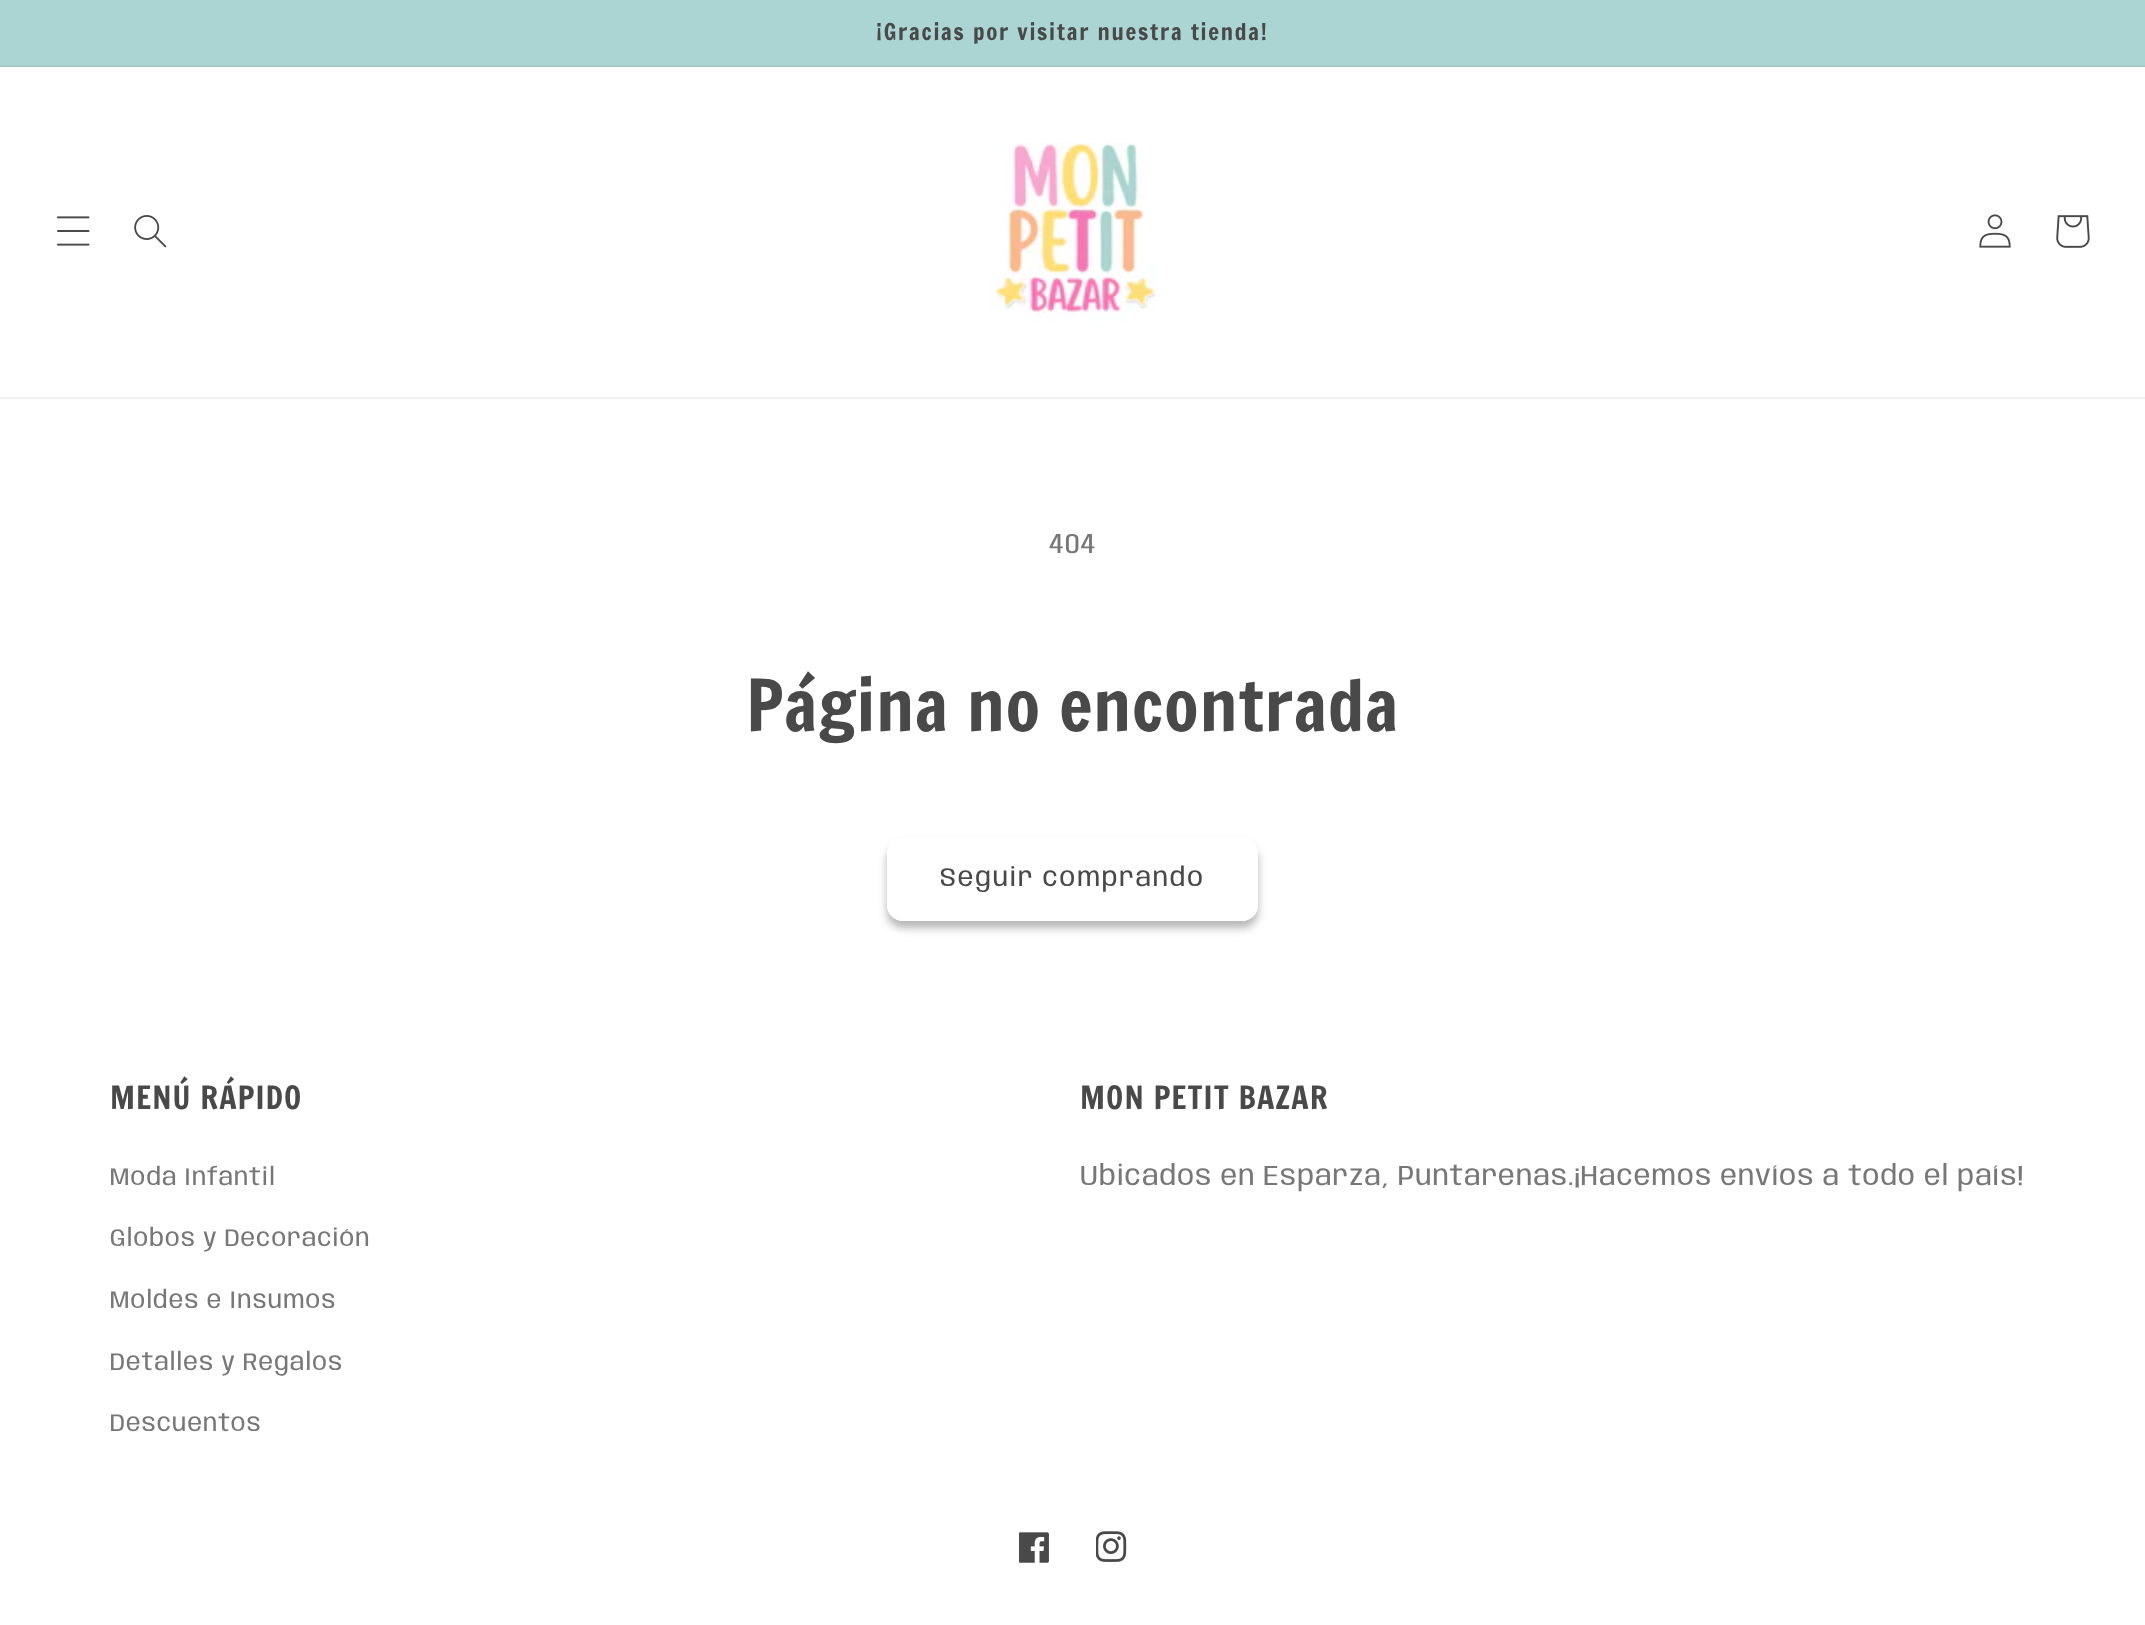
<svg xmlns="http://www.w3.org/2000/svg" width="2145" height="1625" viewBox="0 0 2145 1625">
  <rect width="100%" height="100%" fill="#fff"/>
  <path d="M0 0h2145v65H0z" fill="#abd5d2"/>
  <path d="M0 65h2145v2H0z" fill="#a3cac7"/>
  <path d="M0 397h2145v2H0z" fill="#f0f0f0"/>
  <image x="57" y="216" width="33" height="30" href="img/1.png"/>
  <image x="134" y="215" width="33" height="33" href="img/2.png"/>
  <image x="989" y="142" width="168" height="180" href="img/3.png"/>
  <image x="1979" y="214" width="32" height="34" href="img/4.png"/>
  <image x="2056" y="215" width="34" height="33" href="img/5.png"/>
  <rect x="887" y="845" width="371" height="83" rx="16" fill="#49494966" filter="blur(4.5px)"/>
  <rect x="887" y="838" width="371" height="83" rx="16" fill="#fff"/>
  <rect x="888" y="839" width="369" height="81" rx="15" fill="none" stroke="#fff" stroke-width="2"/>
  <image x="1019" y="1532" width="30" height="31" href="img/6.png"/>
  <image x="1096" y="1531" width="31" height="31" href="img/7.png"/>
  <text x="876" y="40" font-family="Francois One" font-size="22.75" letter-spacing="1.75" fill="#494949">¡Gracias por visitar nuestra tienda!</text>
  <text x="1049" y="553" font-family="Anybody" font-size="28" letter-spacing="1.05" fill="#777">404</text>
  <text x="746" y="731" font-family="Francois One" font-size="70" letter-spacing="1.05" fill="#494949">Página no encontrada</text>
  <text x="940" y="886" font-family="Anybody" font-size="26.25" letter-spacing="1.75" fill="#494949">Seguir comprando</text>
  <text x="110" y="1109" font-family="Francois One" font-size="31.5" letter-spacing="1.05" fill="#494949">MENÚ RÁPIDO</text>
  <g font-family="Anybody" font-size="24.5" letter-spacing="1.05" fill="#777">
    <text x="110" y="1185">Moda Infantil</text>
    <text x="110" y="1246">Globos y Decoración</text>
    <text x="110" y="1308">Moldes e Insumos</text>
    <text x="110" y="1370">Detalles y Regalos</text>
    <text x="110" y="1431">Descuentos</text>
  </g>
  <text x="1080" y="1109" font-family="Francois One" font-size="31.5" letter-spacing="1.05" fill="#494949">MON PETIT BAZAR</text>
  <text x="1080" y="1185" font-family="Anybody" font-size="28" letter-spacing="1.05" fill="#777">Ubicados en Esparza, Puntarenas.¡Hacemos envíos a todo el país!</text>
</svg>
